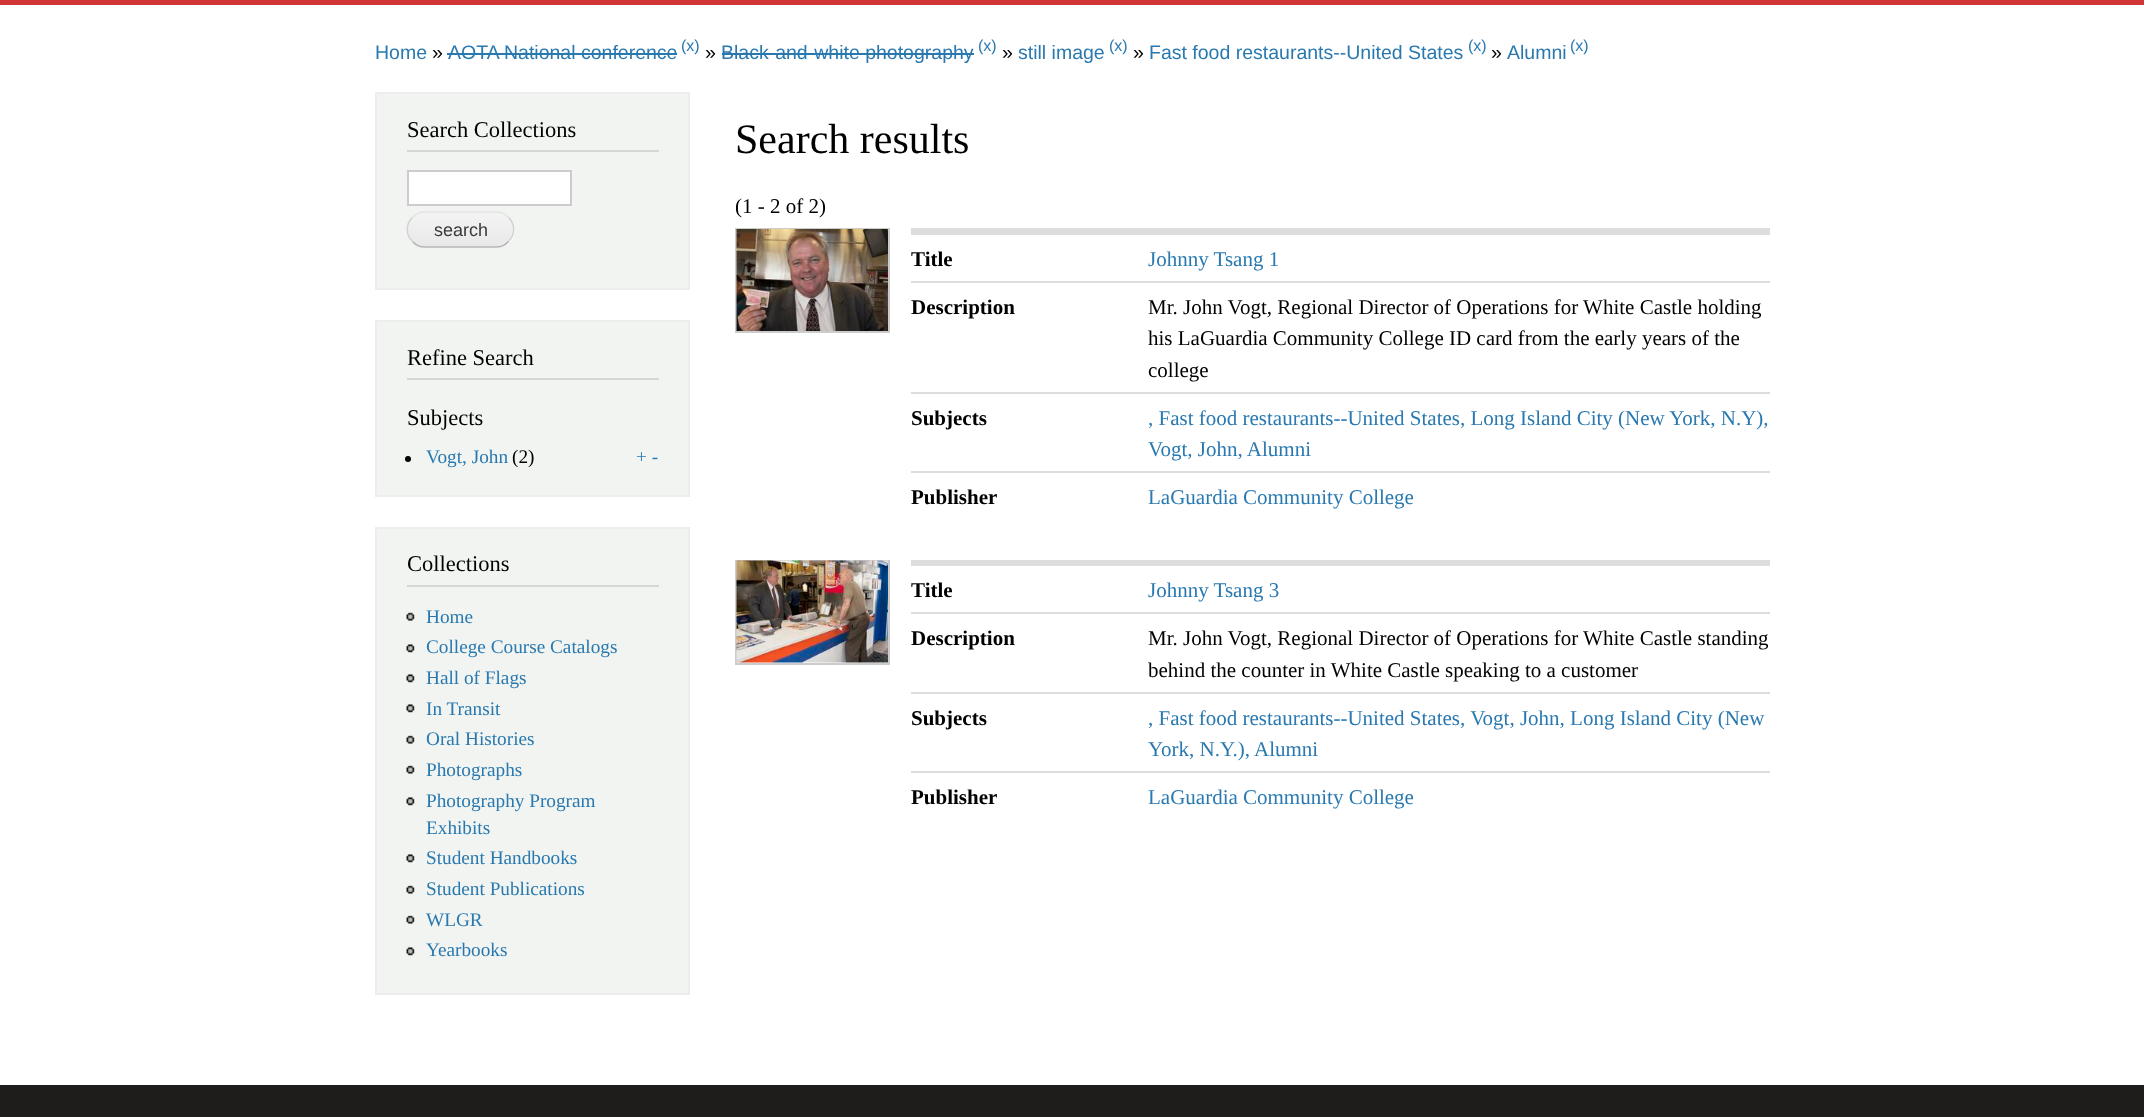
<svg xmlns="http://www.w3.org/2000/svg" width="2144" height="1117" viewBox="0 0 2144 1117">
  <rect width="100%" height="100%" fill="#fff"/>
  <path d="M0 0h2144v5H0z" fill="#cf3535"/>
  <path d="M447 53h230v2H447z" fill="#2979b0"/>
  <path d="M722 53h252v2H722z" fill="#2979b0"/>
  <path d="M376 93h313v196H376z" fill="#f1f4f0" stroke="#ededed" stroke-width="2"/>
  <path d="M407 150h252v2H407z" fill="#d6d6d6"/>
  <path d="M408 171h163v34H408z" fill="#fff" stroke="#ccc" stroke-width="2"/>
  <rect x="407" y="212" width="108" height="36" rx="18" fill="#fff"/>
  <image x="407" y="212" width="107" height="35" href="img/1.png"/>
  <path d="M412.5 217.5C415.5 214 420 212 424.5 212H496.5C501 212 505.5 214 508.5 217.5" fill="none" stroke="#e4e4e4" stroke-width="1.5"/>
  <path d="M508.5 217.5C515.5 224 515.5 235 508.5 241.5" fill="none" stroke="#d2d2d2" stroke-width="1.5"/>
  <path d="M508.5 241.5C505.5 245 501 247 496.5 247H424.5C420 247 415.5 245 412.5 241.5" fill="none" stroke="#b4b4b4" stroke-width="1.5"/>
  <path d="M412.5 241.5C405.5 235 405.5 224 412.5 217.5" fill="none" stroke="#d2d2d2" stroke-width="1.5"/>
  <path d="M376 321h313v175H376z" fill="#f1f4f0" stroke="#ededed" stroke-width="2"/>
  <path d="M407 378h252v2H407z" fill="#d6d6d6"/>
  <circle cx="408" cy="459" r="3" fill="#000"/>
  <path d="M376 528h313v466H376z" fill="#f1f4f0" stroke="#ededed" stroke-width="2"/>
  <path d="M407 585h252v2H407z" fill="#d6d6d6"/>
  <image x="406" y="612" width="9" height="9" href="img/2.png"/>
  <image x="406" y="644" width="9" height="9" href="img/3.png"/>
  <image x="406" y="674" width="9" height="9" href="img/3.png"/>
  <image x="406" y="704" width="9" height="9" href="img/3.png"/>
  <image x="406" y="735" width="9" height="9" href="img/2.png"/>
  <image x="406" y="765" width="9" height="9" href="img/2.png"/>
  <image x="406" y="797" width="9" height="9" href="img/3.png"/>
  <image x="406" y="854" width="9" height="9" href="img/3.png"/>
  <image x="406" y="885" width="9" height="9" href="img/2.png"/>
  <image x="406" y="915" width="9" height="9" href="img/2.png"/>
  <image x="406" y="947" width="9" height="9" href="img/3.png"/>
  <path d="M736 229h153v103H736z" fill="none" stroke="#ccc" stroke-width="2"/>
  <image x="736" y="229" width="152" height="102" href="img/4.png"/>
  <path d="M911 228h859v5H911z" fill="#ddd"/>
  <path d="M911 233h859v2H911z" fill="#ddd"/>
  <path d="M911 281h859v2H911z" fill="#ddd"/>
  <path d="M911 392h859v2H911z" fill="#ddd"/>
  <path d="M911 471h859v2H911z" fill="#ddd"/>
  <path d="M736 561h153v103H736z" fill="none" stroke="#ccc" stroke-width="2"/>
  <image x="736" y="560" width="152" height="103" href="img/5.png"/>
  <path d="M911 560h859v4H911z" fill="#ddd"/>
  <path d="M911 564h859v2H911z" fill="#ddd"/>
  <path d="M911 612h859v2H911z" fill="#ddd"/>
  <path d="M911 692h859v2H911z" fill="#ddd"/>
  <path d="M911 771h859v2H911z" fill="#ddd"/>
  <path d="M0 1085h2144v32H0z" fill="#1f1d1c"/>
  <text x="375" y="59" font-family="Liberation Sans" font-size="19.5" fill="#2979b0">Home</text>
  <text x="432" y="59" font-family="Liberation Sans" font-size="19.5" fill="#000">»</text>
  <text x="448" y="59" font-family="Liberation Sans" font-size="19.5" fill="#2979b0">AOTA National conference</text>
  <text x="681" y="51" font-family="Liberation Sans" font-size="16" fill="#2979b0">(x)</text>
  <text x="705" y="59" font-family="Liberation Sans" font-size="19.5" fill="#000">»</text>
  <text x="721" y="59" font-family="Liberation Sans" font-size="19.5" fill="#2979b0">Black-and-white photography</text>
  <text x="978" y="51" font-family="Liberation Sans" font-size="16" fill="#2979b0">(x)</text>
  <text x="1002" y="59" font-family="Liberation Sans" font-size="19.5" fill="#000">»</text>
  <text x="1018" y="59" font-family="Liberation Sans" font-size="19.5" fill="#2979b0">still image</text>
  <text x="1109" y="51" font-family="Liberation Sans" font-size="16" fill="#2979b0">(x)</text>
  <text x="1133" y="59" font-family="Liberation Sans" font-size="19.5" fill="#000">»</text>
  <text x="1149" y="59" font-family="Liberation Sans" font-size="19.5" fill="#2979b0">Fast food restaurants--United States</text>
  <text x="1468" y="51" font-family="Liberation Sans" font-size="16" fill="#2979b0">(x)</text>
  <text x="1491" y="59" font-family="Liberation Sans" font-size="19.5" fill="#000">»</text>
  <text x="1507" y="59" font-family="Liberation Sans" font-size="19.5" fill="#2979b0">Alumni</text>
  <text x="1570" y="51" font-family="Liberation Sans" font-size="16" fill="#2979b0">(x)</text>
  <text x="407" y="137" font-family="Liberation Serif" font-size="22.5" fill="#000">Search Collections</text>
  <text x="434" y="236" font-family="Liberation Sans" font-size="18" fill="#3a3a3a">search</text>
  <g font-family="Liberation Serif" font-size="22.5" fill="#000">
    <text x="407" y="365">Refine Search</text>
    <text x="407" y="425">Subjects</text>
  </g>
  <text x="426" y="463" font-family="Liberation Serif" font-size="19.25" fill="#2979b0">Vogt, John</text>
  <text x="512" y="463" font-family="Liberation Serif" font-size="19.25" fill="#000">(2)</text>
  <text x="636" y="463" font-family="Liberation Serif" font-size="19.25" fill="#2979b0">+ -</text>
  <text x="407" y="571" font-family="Liberation Serif" font-size="22.5" fill="#000">Collections</text>
  <g font-family="Liberation Serif" font-size="19.25" fill="#2979b0">
    <text x="426" y="623">Home</text>
    <text x="426" y="653">College Course Catalogs</text>
    <text x="426" y="684">Hall of Flags</text>
    <text x="426" y="715">In Transit</text>
    <text x="426" y="745">Oral Histories</text>
    <text x="426" y="776">Photographs</text>
    <text x="426" y="807">Photography Program</text>
    <text x="426" y="834">Exhibits</text>
    <text x="426" y="864">Student Handbooks</text>
    <text x="426" y="895">Student Publications</text>
    <text x="426" y="926">WLGR</text>
    <text x="426" y="956">Yearbooks</text>
  </g>
  <text x="735" y="153" font-family="Liberation Serif" font-size="42" fill="#000">Search results</text>
  <text x="735" y="213" font-family="Liberation Serif" font-size="21" fill="#000">(1 - 2 of 2)</text>
  <text x="911" y="266" font-family="Liberation Serif" font-size="21" font-weight="bold" fill="#000">Title</text>
  <text x="1148" y="266" font-family="Liberation Serif" font-size="21" fill="#2979b0">Johnny Tsang 1</text>
  <text x="911" y="314" font-family="Liberation Serif" font-size="21" font-weight="bold" fill="#000">Description</text>
  <g font-family="Liberation Serif" font-size="21" fill="#000">
    <text x="1148" y="314">Mr. John Vogt, Regional Director of Operations for White Castle holding</text>
    <text x="1148" y="345">his LaGuardia Community College ID card from the early years of the</text>
    <text x="1148" y="377">college</text>
  </g>
  <text x="911" y="425" font-family="Liberation Serif" font-size="21" font-weight="bold" fill="#000">Subjects</text>
  <g font-family="Liberation Serif" font-size="21" fill="#2979b0">
    <text x="1148" y="425">, Fast food restaurants--United States, Long Island City (New York, N.Y),</text>
    <text x="1148" y="456">Vogt, John, Alumni</text>
  </g>
  <text x="911" y="504" font-family="Liberation Serif" font-size="21" font-weight="bold" fill="#000">Publisher</text>
  <text x="1148" y="504" font-family="Liberation Serif" font-size="21" fill="#2979b0">LaGuardia Community College</text>
  <text x="911" y="597" font-family="Liberation Serif" font-size="21" font-weight="bold" fill="#000">Title</text>
  <text x="1148" y="597" font-family="Liberation Serif" font-size="21" fill="#2979b0">Johnny Tsang 3</text>
  <text x="911" y="645" font-family="Liberation Serif" font-size="21" font-weight="bold" fill="#000">Description</text>
  <g font-family="Liberation Serif" font-size="21" fill="#000">
    <text x="1148" y="645">Mr. John Vogt, Regional Director of Operations for White Castle standing</text>
    <text x="1148" y="677">behind the counter in White Castle speaking to a customer</text>
  </g>
  <text x="911" y="725" font-family="Liberation Serif" font-size="21" font-weight="bold" fill="#000">Subjects</text>
  <g font-family="Liberation Serif" font-size="21" fill="#2979b0">
    <text x="1148" y="725">, Fast food restaurants--United States, Vogt, John, Long Island City (New</text>
    <text x="1148" y="756">York, N.Y.), Alumni</text>
  </g>
  <text x="911" y="804" font-family="Liberation Serif" font-size="21" font-weight="bold" fill="#000">Publisher</text>
  <text x="1148" y="804" font-family="Liberation Serif" font-size="21" fill="#2979b0">LaGuardia Community College</text>
</svg>
